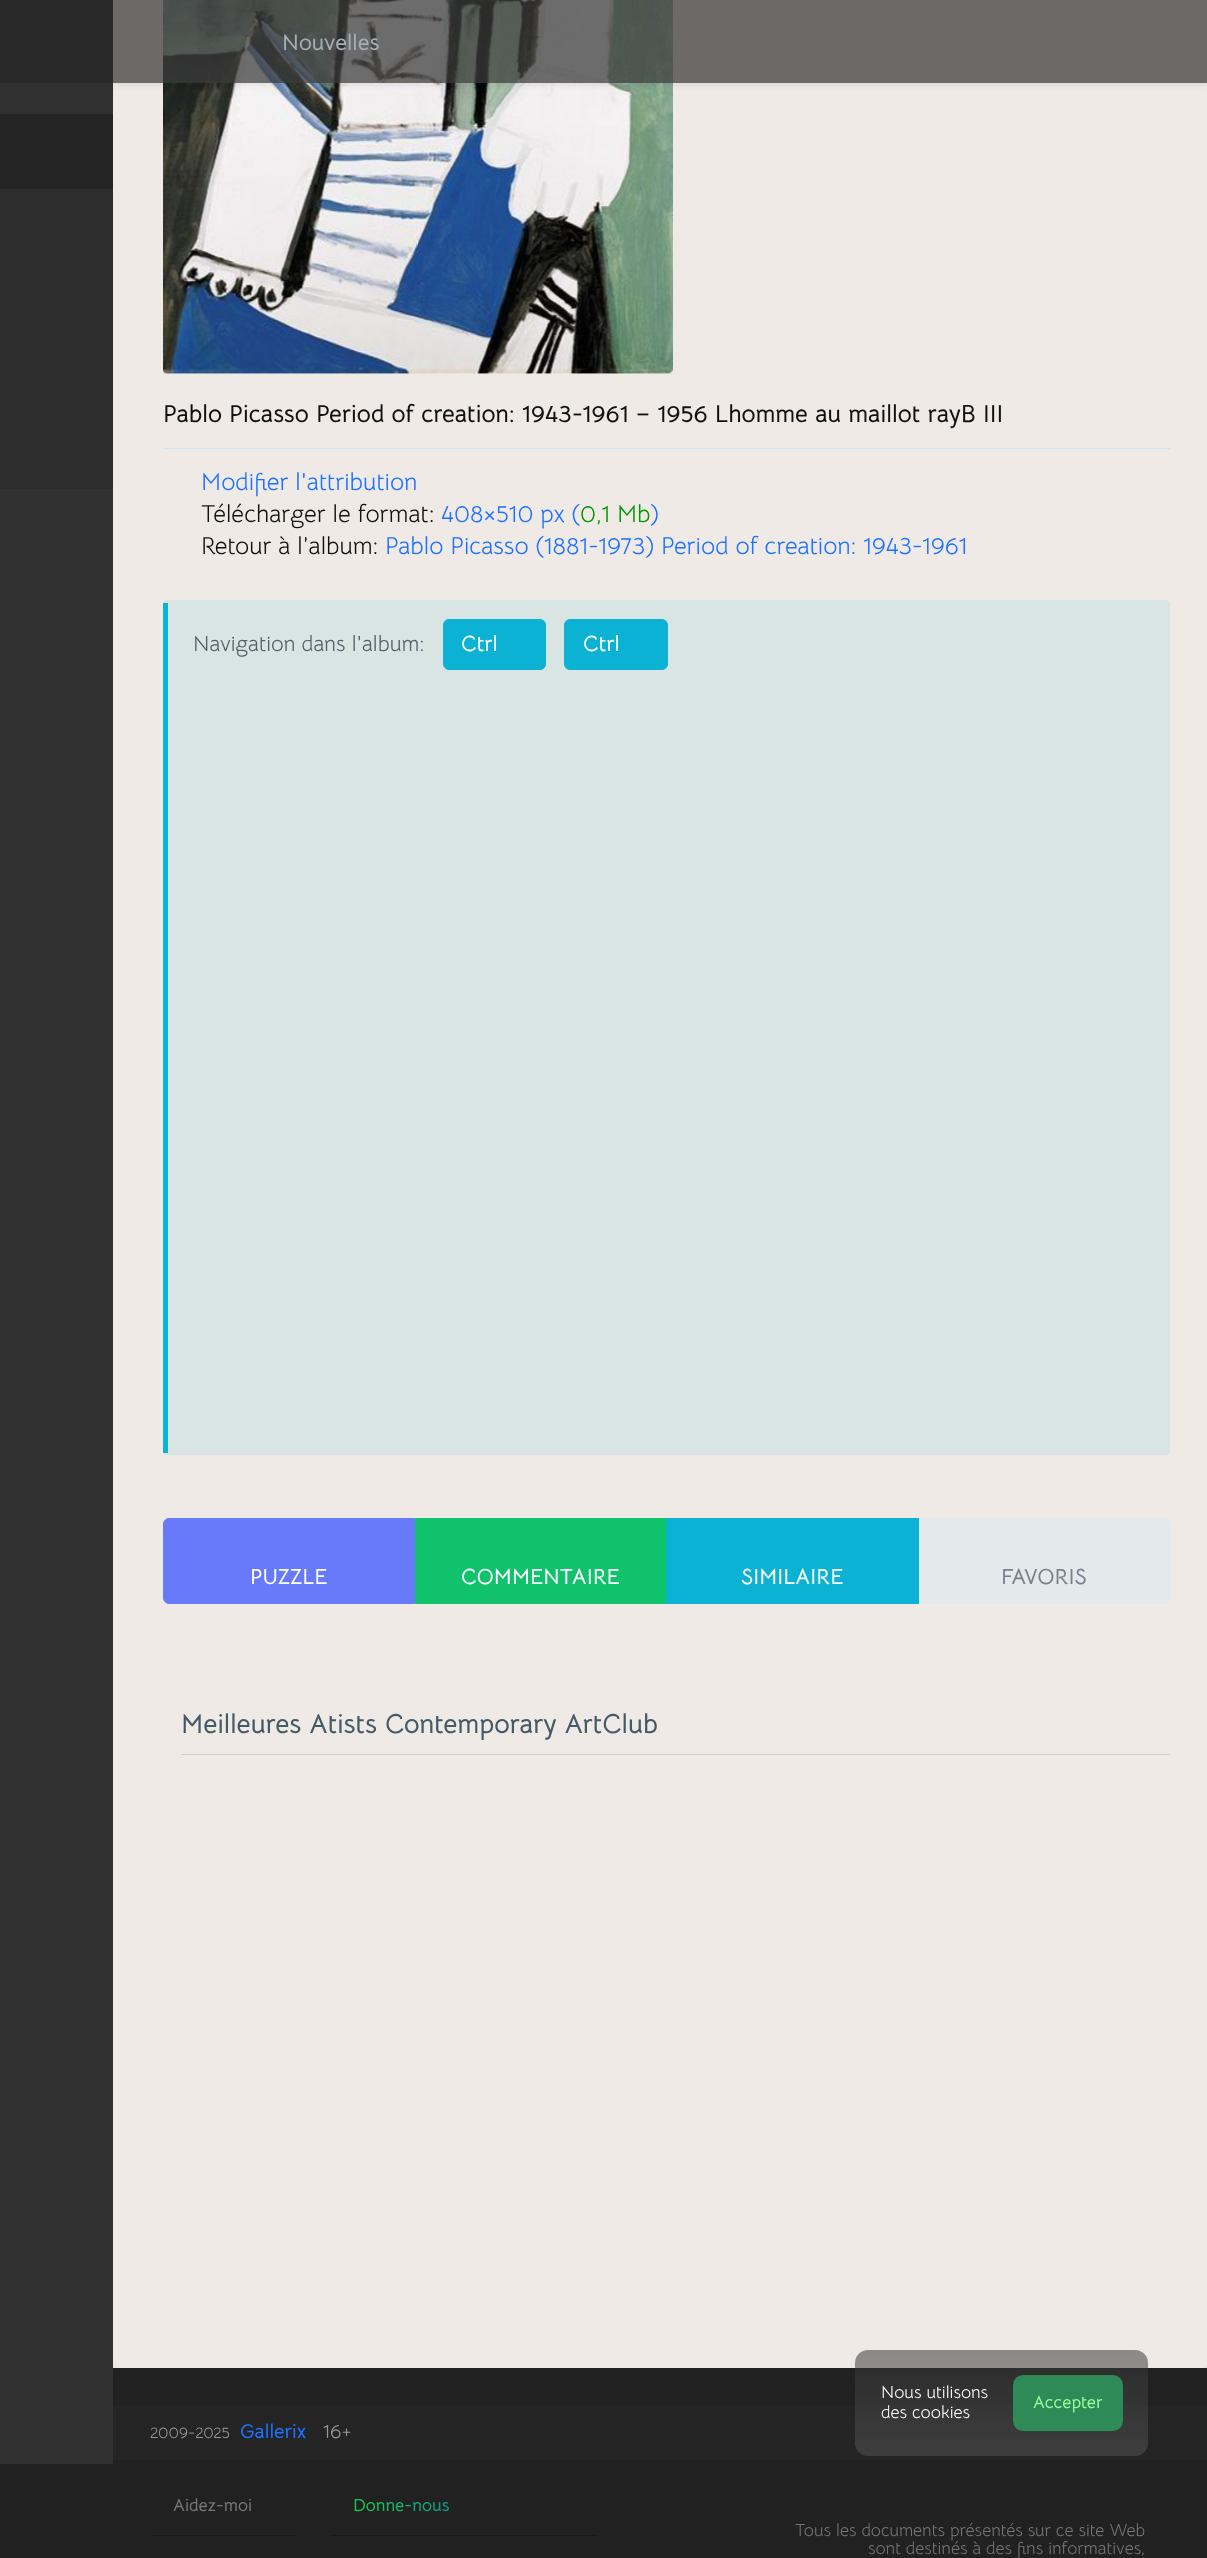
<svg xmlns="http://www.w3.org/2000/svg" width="1207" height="2558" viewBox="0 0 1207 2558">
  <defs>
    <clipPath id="clip1"><path d="M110 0H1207V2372H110ZM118-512H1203C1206-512 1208-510 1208-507V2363C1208 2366 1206 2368 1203 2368H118C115 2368 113 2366 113 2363V-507C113-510 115-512 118-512Z" clip-rule="evenodd"/></clipPath>
    <clipPath id="clip2"><path d="M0 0H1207V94H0ZM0 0H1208V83H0Z" clip-rule="evenodd"/></clipPath>
    <linearGradient id="g1" gradientUnits="userSpaceOnUse" x1="330" y1="2505" x2="597" y2="2505"><stop offset="0.1" stop-color="#1cc54c"/><stop offset="0.88" stop-color="#0367d3"/><stop offset="1" stop-color="#0367d3"/></linearGradient>
    <linearGradient id="g2" gradientUnits="userSpaceOnUse" x1="1001" y1="2456" x2="1001" y2="2350"><stop offset="0" stop-color="#555" stop-opacity="0.52"/><stop offset="1" stop-color="#333" stop-opacity="0.53"/></linearGradient>
  </defs>
  <rect width="100%" height="100%" fill="#212121"/>
  <path d="M113 0h1094v2368H113z" fill="#efeae5"/>
  <g clip-path="url(#clip1)">
    <rect x="113" y="-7" width="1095" height="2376" rx="5" fill="#0000000d" filter="blur(0.5px)"/>
  </g>
  <path d="M0 83h113v2381H0z" fill="#313131"/>
  <image x="163" y="0" width="510" height="374" href="img/1.png"/>
  <g clip-path="url(#clip2)">
    <path d="M0 3h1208v82H0z" fill="#00000014" filter="blur(2.5px)"/>
  </g>
  <path d="M113 0h1094v83H113z" fill="#3b3b3bba"/>
  <path d="M0 0h113v83H0z" fill="#292929"/>
  <path d="M0 114h113v75H0z" fill="#252525"/>
  <path d="M0 189h113v300H0z" fill="#2d2d2d"/>
  <path d="M163 448h1007v1H163z" fill="#c9e5ff"/>
  <rect x="163" y="600" width="1007" height="855" rx="4" fill="#d9e5e3"/>
  <path d="M163 603h5v850H163z" fill="#0bb2d4"/>
  <rect x="443.5" y="619.5" width="102" height="50" rx="5.5" fill="#0bb2d4" stroke="#0bb2d4"/>
  <rect x="564.5" y="619.5" width="103" height="50" rx="5.5" fill="#0bb2d4" stroke="#0bb2d4"/>
  <path d="M169 1518.5H414.5V1603.5H169C166 1603.5 163.5 1601 163.5 1598V1524C163.5 1521 166 1518.5 169 1518.5Z" fill="#667afa" stroke="#667afa"/>
  <path d="M415 1518h251v86H415z" fill="#11c26d"/>
  <path d="M666 1518h253v86H666z" fill="#0bb2d4"/>
  <path d="M919.5 1518.5H1164C1167 1518.5 1169.5 1521 1169.5 1524V1598C1169.5 1601 1167 1603.5 1164 1603.5H919.5Z" fill="#e4eaec" stroke="#e4eaec"/>
  <path d="M181 1754h989v1H181z" fill="#d3d0cc"/>
  <path d="M113 2405h1094v55H113z" fill="#242424"/>
  <rect x="855" y="2350" width="293" height="106" rx="13" fill="url(#g2)"/>
  <rect x="1013" y="2375" width="110" height="56" rx="10" fill="#2e8b57"/>
  <path d="M297 2536H150L151 2535H296Z" fill="#1a1a1a"/>
  <path d="M597 2536H330L331 2535H596Z" fill="#1a1a1a"/>
  <text x="282" y="50" font-family="Bellota Text" font-size="22.5" font-weight="bold" fill="#a3afb7">Nouvelles</text>
  <text x="163" y="422" font-family="Bellota Text" font-size="24.5" font-weight="bold" fill="#111">Pablo Picasso Period of creation: 1943-1961 – 1956 Lhomme au maillot rayВ III</text>
  <text x="201" y="490" font-family="Bellota Text" font-size="24.5" fill="#1c71ff">Modifier l'attribution</text>
  <text x="201" y="522" font-family="Bellota Text" font-size="24.5" fill="#111">Télécharger le format:</text>
  <text x="441" y="522" font-family="Bellota Text" font-size="24.5" fill="#1c71ff">408×510 px (</text>
  <text x="580" y="522" font-family="Bellota Text" font-size="24.5" fill="#009600">0,1 Mb</text>
  <text x="650" y="522" font-family="Bellota Text" font-size="24.5" fill="#1c71ff">)</text>
  <text x="201" y="554" font-family="Bellota Text" font-size="24.5" fill="#111">Retour à l’album:</text>
  <text x="385" y="554" font-family="Bellota Text" font-size="24.5" fill="#1c71ff">Pablo Picasso (1881-1973) Period of creation: 1943-1961</text>
  <text x="193" y="651" font-family="Bellota Text" font-size="21.9" fill="#526069">Navigation dans l'album:</text>
  <g font-family="Bellota Text" font-size="21.9" font-weight="bold" fill="#fff">
    <text x="461" y="651">Ctrl</text>
    <text x="583" y="651">Ctrl</text>
    <text x="250" y="1584">PUZZLE</text>
    <text x="461" y="1584">COMMENTAIRE</text>
    <text x="741" y="1584">SIMILAIRE</text>
  </g>
  <text x="1001" y="1584" font-family="Bellota Text" font-size="21.9" font-weight="bold" fill="#76838f">FAVORIS</text>
  <text x="181" y="1733" font-family="Bellota Text" font-size="27.1" font-weight="bold" fill="#435b67">Meilleures Atists Contemporary ArtClub</text>
  <g font-family="Bellota Text" font-size="17.5" fill="#fff">
    <text x="881" y="2398">Nous utilisons</text>
    <text x="881" y="2418">des cookies</text>
  </g>
  <text x="1033" y="2408" font-family="Bellota Text" font-size="17.5" font-weight="bold" fill="#98fb98">Accepter</text>
  <text x="150" y="2438" font-family="Bellota Text" font-size="16" fill="#999">2009-2025</text>
  <text x="240" y="2438" font-family="Bellota Text" font-size="20" font-weight="bold" fill="#1c71ff">Gallerix</text>
  <text x="323" y="2438" font-family="Bellota Text" font-size="20" fill="#999">16+</text>
  <text x="173" y="2511" font-family="Bellota Text" font-size="17.5" font-weight="bold" fill="#757575">Aidez-moi</text>
  <text x="353" y="2511" font-family="Bellota Text" font-size="17.5" font-weight="bold" fill="url(#g1)">Donne-nous</text>
  <g font-family="Bellota Text" font-size="17.5" fill="#757575">
    <text x="795" y="2536">Tous les documents présentés sur ce site Web</text>
    <text x="868" y="2554">sont destinés à des fins informatives,</text>
  </g>
</svg>
